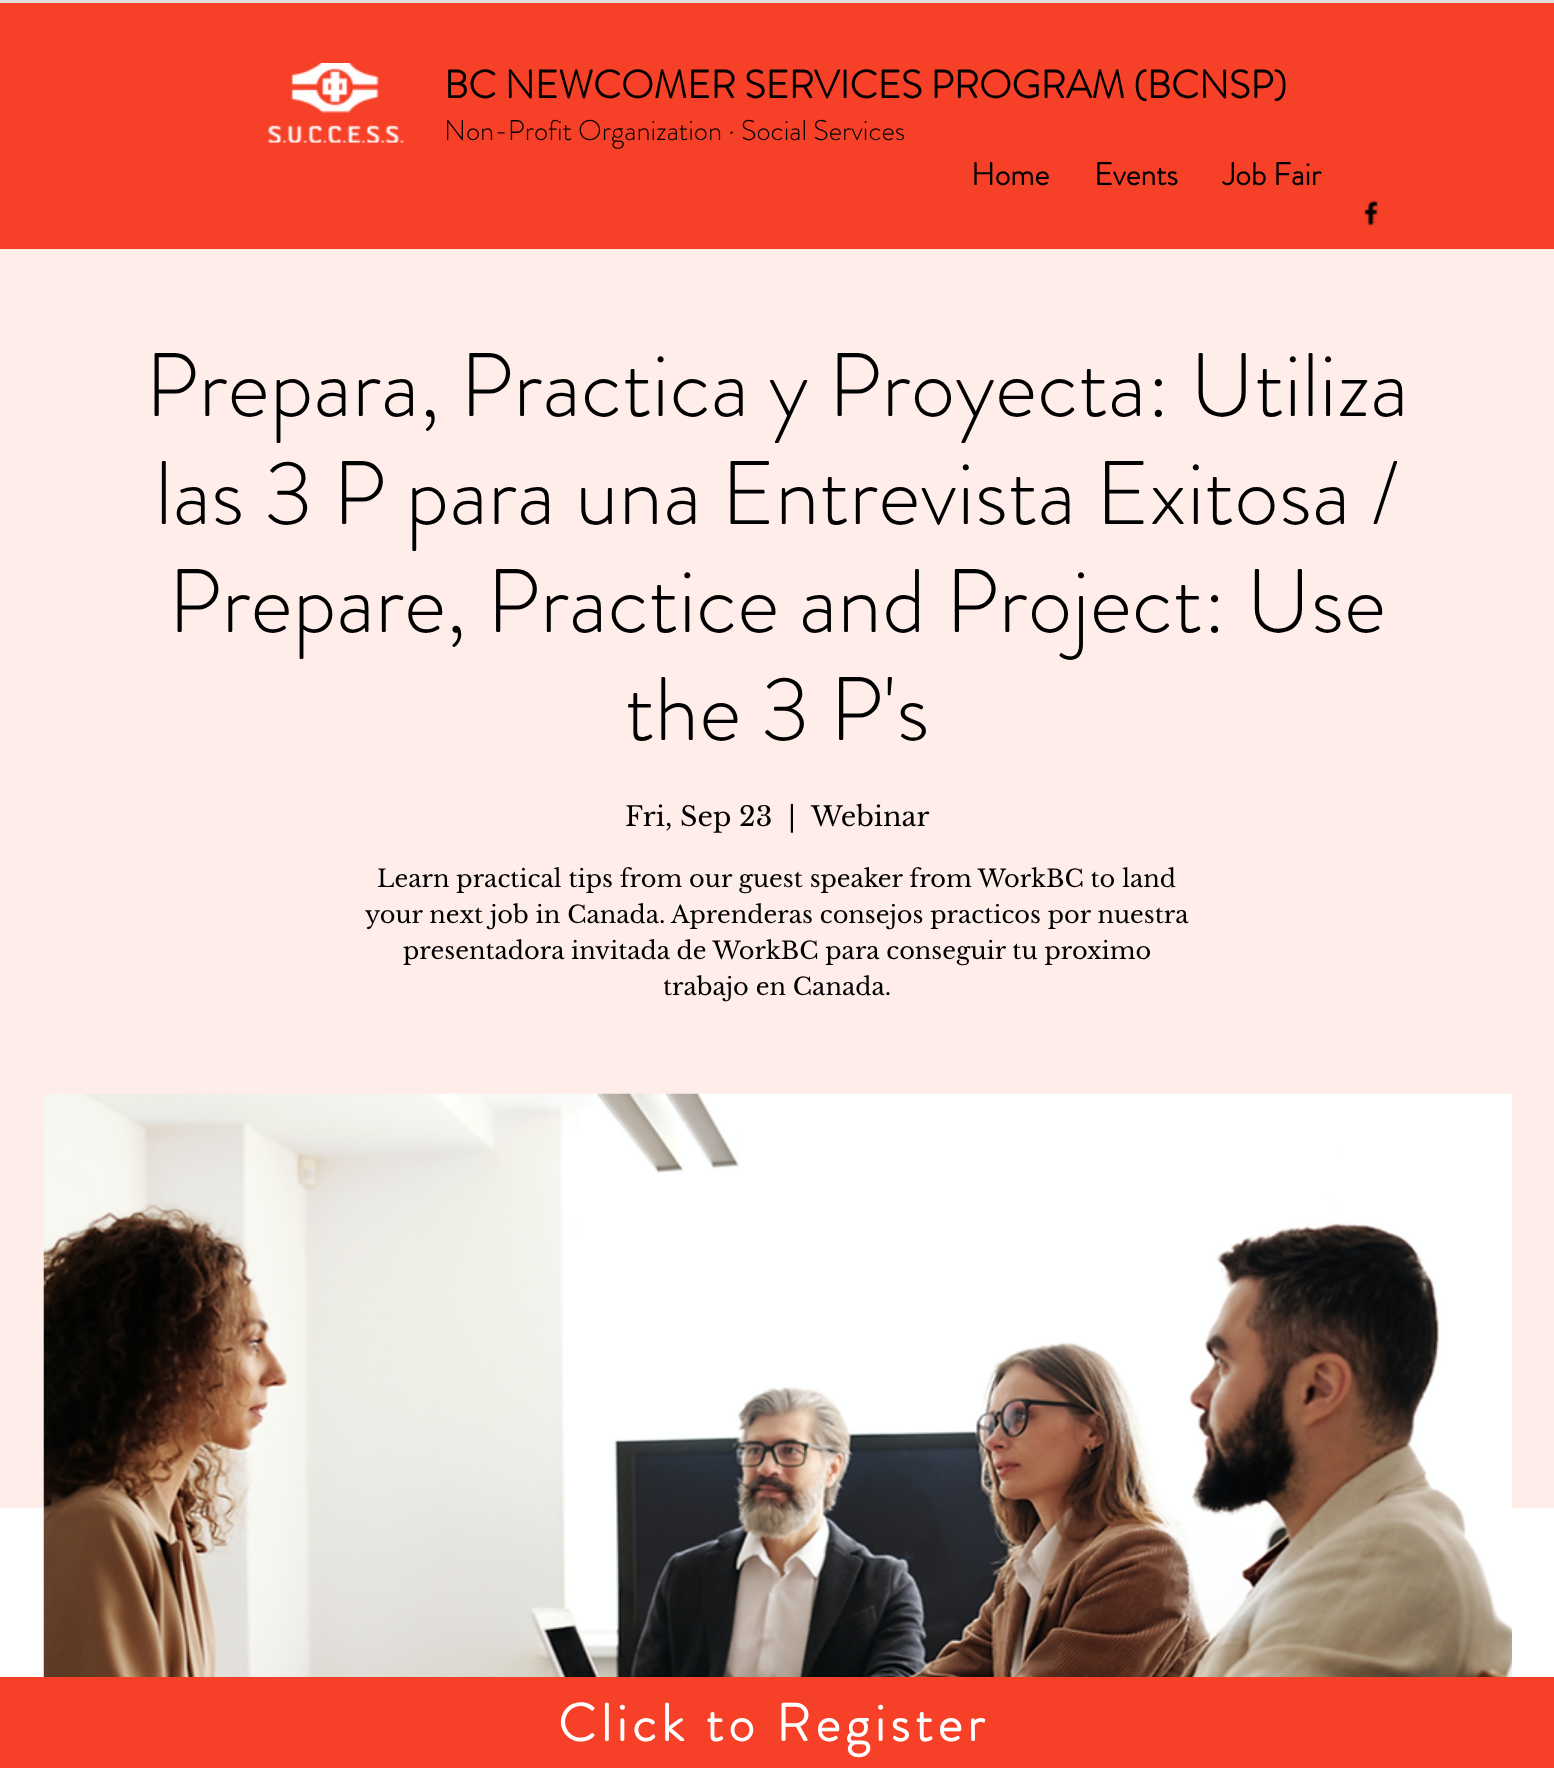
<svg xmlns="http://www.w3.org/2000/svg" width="1554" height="1768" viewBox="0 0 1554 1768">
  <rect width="100%" height="100%" fill="#fff"/>
  <path d="M0 0h1554v3H0z" fill="#e2e1dd"/>
  <path d="M0 3h1554v246H0z" fill="#f64028"/>
  <image x="268" y="63" width="136" height="80" href="img/1.png"/>
  <image x="1364" y="200" width="14" height="26" href="img/2.png"/>
  <path d="M0 249h1554v1259H0z" fill="#ffedea"/>
  <image x="43" y="1093" width="1469" height="584" href="img/3.png"/>
  <path d="M0 1677h1554v91H0z" fill="#f64028"/>
  <text x="444" y="98" font-family="'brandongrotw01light'" font-size="39" font-weight="bold" fill="#000">BC NEWCOMER SERVICES PROGRAM (BCNSP)</text>
  <text x="444" y="140" font-family="'brandongrotw01light'" font-size="28.5" font-weight="300" fill="#000">Non-Profit Organization · Social Services</text>
  <g font-family="'brandongrotw01light'" font-size="31.5" font-weight="bold" fill="#000">
    <text x="971" y="185">Home</text>
    <text x="1094" y="185">Events</text>
    <text x="1223" y="185">Job Fair</text>
  </g>
  <g font-family="'brandongrotw01light'" font-size="90" font-weight="300" fill="#000">
    <text x="145" y="416">Prepara, Practica y Proyecta: Utiliza</text>
    <text x="155" y="524">las 3 P para una Entrevista Exitosa /</text>
    <text x="168" y="632">Prepare, Practice and Project: Use</text>
    <text x="625" y="740">the 3 P's</text>
  </g>
  <g font-family="Libre Baskerville" font-size="27" fill="#000">
    <text x="625" y="826">Fri, Sep 23</text>
    <text x="788" y="826">|</text>
    <text x="811" y="826">Webinar</text>
  </g>
  <g font-family="Libre Baskerville" font-size="24" fill="#000">
    <text x="377" y="887">Learn practical tips from our guest speaker from WorkBC to land</text>
    <text x="365" y="923">your next job in Canada.</text>
    <text x="671" y="923">Aprenderas consejos practicos por nuestra</text>
    <text x="403" y="959">presentadora invitada de WorkBC para conseguir tu proximo</text>
    <text x="663" y="995">trabajo en Canada.</text>
  </g>
  <text x="558" y="1741" font-family="'brandongrotw01light'" font-size="52.5" font-weight="bold" letter-spacing="5.25" fill="#fff">Click to Register</text>
</svg>
